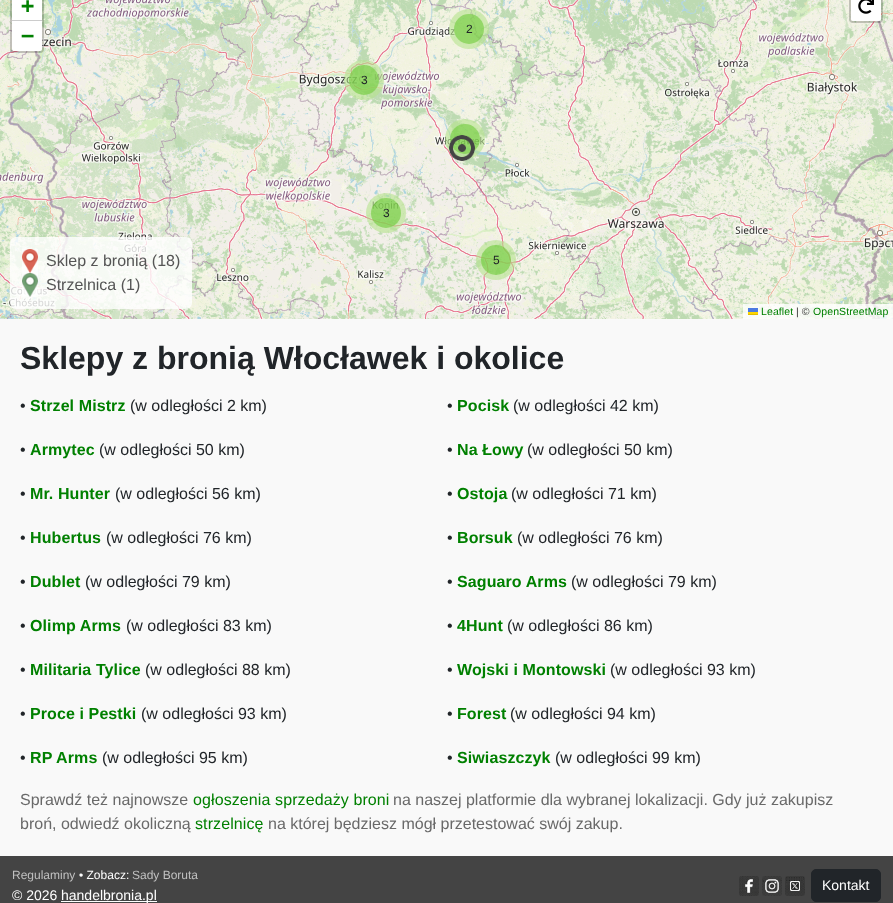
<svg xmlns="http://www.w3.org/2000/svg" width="893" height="903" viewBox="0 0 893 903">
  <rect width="100%" height="100%" fill="#f9f9f9"/>
  <image x="4" y="0" width="256" height="175" href="img/5.png"/>
  <rect x="11" y="-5" width="32" height="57" rx="3" fill="none" stroke="#00000033" stroke-width="2"/>
  <path d="M12 0h30v20H12z" fill="#fff"/>
  <path d="M12 20h30v1H12z" fill="#ccc"/>
  <path d="M12 21H42V49C42 50 41 51 40 51H14C13 51 12 50 12 49Z" fill="#fff"/>
  <image x="772" y="0" width="121" height="175" href="img/8.png"/>
  <rect x="850" y="-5" width="32" height="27" rx="3" fill="none" stroke="#00000033" stroke-width="2"/>
  <rect x="851" y="-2" width="30" height="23" rx="2" fill="#fff"/>
  <image x="858" y="0" width="16" height="14" href="img/1.png"/>
  <image x="4" y="175" width="256" height="144" href="img/10.png"/>
  <rect x="10" y="237" width="182" height="72" rx="6" fill="#ffffffcc"/>
  <path d="M22 249h16v24H22z" fill="#ffffffb8"/>
  <image x="22" y="249" width="16" height="24" href="img/2.png"/>
  <path d="M22 273h16v24H22z" fill="#ffffffb8"/>
  <image x="22" y="273" width="16" height="24" href="img/3.png"/>
  <image x="516" y="175" width="256" height="144" href="img/12.png"/>
  <image x="772" y="175" width="121" height="144" href="img/13.png"/>
  <path d="M743 304h150v15H743z" fill="#ffffffcc"/>
  <path d="M748 308h10v4H748z" fill="#4c7be1"/>
  <path d="M748 312h10v2H748z" fill="#ffd500"/>
  <path d="M748 314h10v1H748z" fill="#e0bc00"/>
  <image x="0" y="0" width="4" height="175" href="img/4.png"/>
  <image x="260" y="0" width="256" height="175" href="img/6.png"/>
  <image x="516" y="0" width="256" height="175" href="img/7.png"/>
  <image x="0" y="175" width="4" height="144" href="img/9.png"/>
  <image x="260" y="175" width="256" height="144" href="img/11.png"/>
  <circle cx="469" cy="29" r="20" fill="#b6e28d99"/>
  <circle cx="469" cy="29" r="15" fill="#6ecc3999"/>
  <circle cx="364" cy="80" r="20" fill="#b6e28d99"/>
  <circle cx="364" cy="80" r="15" fill="#6ecc3999"/>
  <circle cx="465" cy="139" r="20" fill="#b6e28d99"/>
  <circle cx="465" cy="139" r="15" fill="#6ecc3999"/>
  <image x="449" y="135" width="26" height="26" href="img/14.png"/>
  <circle cx="386" cy="213" r="20" fill="#b6e28d99"/>
  <circle cx="386" cy="213" r="15" fill="#6ecc3999"/>
  <circle cx="496" cy="260" r="20" fill="#b6e28d99"/>
  <circle cx="496" cy="260" r="15" fill="#6ecc3999"/>
  <path d="M0 856h893v47H0z" fill="#444"/>
  <path d="M61 901h96v1H61z" fill="#fff"/>
  <image x="739" y="876" width="20" height="20" href="img/15.png"/>
  <image x="762" y="876" width="20" height="20" href="img/16.png"/>
  <image x="785" y="876" width="20" height="20" href="img/17.png"/>
  <rect x="811.5" y="869.5" width="69" height="32" rx="4.5" fill="#212529" stroke="#212529"/>
  <g font-family="DejaVu Sans Mono" font-size="22" font-weight="bold" letter-spacing="0.1" fill="#008000">
    <text x="21" y="13">+</text>
    <text x="21" y="43">−</text>
  </g>
  <g font-family="Liberation Sans" font-size="16" fill="#555">
    <text x="46" y="266">Sklep z bronią (18)</text>
    <text x="46" y="290">Strzelnica (1)</text>
  </g>
  <text x="761" y="315" font-family="Liberation Sans" font-size="10.5" letter-spacing="0.1" fill="#008000">Leaflet</text>
  <text x="796" y="315" font-family="Liberation Sans" font-size="10.5" fill="#333">| ©</text>
  <text x="813" y="315" font-family="Liberation Sans" font-size="10.5" letter-spacing="0.1" fill="#008000">OpenStreetMap</text>
  <g font-family="Liberation Sans" font-size="12" fill="#212529">
    <text x="466" y="33">2</text>
    <text x="361" y="84">3</text>
    <text x="383" y="217">3</text>
    <text x="493" y="264">5</text>
  </g>
  <text x="20" y="369" font-family="Liberation Sans" font-size="32" font-weight="bold" fill="#212529">Sklepy z bronią Włocławek i okolice</text>
  <text x="20" y="411" font-family="Liberation Sans" font-size="16" fill="#212529">•</text>
  <text x="30" y="411" font-family="Liberation Sans" font-size="16" font-weight="bold" letter-spacing="0.1" fill="#008000">Strzel Mistrz</text>
  <g font-family="Liberation Sans" font-size="16" fill="#212529">
    <text x="130" y="411">(w odległości 2 km)</text>
    <text x="447" y="411">•</text>
  </g>
  <text x="457" y="411" font-family="Liberation Sans" font-size="16" font-weight="bold" letter-spacing="0.1" fill="#008000">Pocisk</text>
  <g font-family="Liberation Sans" font-size="16" fill="#212529">
    <text x="513" y="411">(w odległości 42 km)</text>
    <text x="20" y="455">•</text>
  </g>
  <text x="30" y="455" font-family="Liberation Sans" font-size="16" font-weight="bold" letter-spacing="0.1" fill="#008000">Armytec</text>
  <g font-family="Liberation Sans" font-size="16" fill="#212529">
    <text x="99" y="455">(w odległości 50 km)</text>
    <text x="447" y="455">•</text>
  </g>
  <text x="457" y="455" font-family="Liberation Sans" font-size="16" font-weight="bold" letter-spacing="0.1" fill="#008000">Na Łowy</text>
  <g font-family="Liberation Sans" font-size="16" fill="#212529">
    <text x="527" y="455">(w odległości 50 km)</text>
    <text x="20" y="499">•</text>
  </g>
  <text x="30" y="499" font-family="Liberation Sans" font-size="16" font-weight="bold" letter-spacing="0.1" fill="#008000">Mr. Hunter</text>
  <g font-family="Liberation Sans" font-size="16" fill="#212529">
    <text x="115" y="499">(w odległości 56 km)</text>
    <text x="447" y="499">•</text>
  </g>
  <text x="457" y="499" font-family="Liberation Sans" font-size="16" font-weight="bold" letter-spacing="0.1" fill="#008000">Ostoja</text>
  <g font-family="Liberation Sans" font-size="16" fill="#212529">
    <text x="511" y="499">(w odległości 71 km)</text>
    <text x="20" y="543">•</text>
  </g>
  <text x="30" y="543" font-family="Liberation Sans" font-size="16" font-weight="bold" letter-spacing="0.1" fill="#008000">Hubertus</text>
  <g font-family="Liberation Sans" font-size="16" fill="#212529">
    <text x="106" y="543">(w odległości 76 km)</text>
    <text x="447" y="543">•</text>
  </g>
  <text x="457" y="543" font-family="Liberation Sans" font-size="16" font-weight="bold" letter-spacing="0.1" fill="#008000">Borsuk</text>
  <g font-family="Liberation Sans" font-size="16" fill="#212529">
    <text x="517" y="543">(w odległości 76 km)</text>
    <text x="20" y="587">•</text>
  </g>
  <text x="30" y="587" font-family="Liberation Sans" font-size="16" font-weight="bold" letter-spacing="0.1" fill="#008000">Dublet</text>
  <g font-family="Liberation Sans" font-size="16" fill="#212529">
    <text x="85" y="587">(w odległości 79 km)</text>
    <text x="447" y="587">•</text>
  </g>
  <text x="457" y="587" font-family="Liberation Sans" font-size="16" font-weight="bold" letter-spacing="0.1" fill="#008000">Saguaro Arms</text>
  <g font-family="Liberation Sans" font-size="16" fill="#212529">
    <text x="571" y="587">(w odległości 79 km)</text>
    <text x="20" y="631">•</text>
  </g>
  <text x="30" y="631" font-family="Liberation Sans" font-size="16" font-weight="bold" letter-spacing="0.1" fill="#008000">Olimp Arms</text>
  <g font-family="Liberation Sans" font-size="16" fill="#212529">
    <text x="126" y="631">(w odległości 83 km)</text>
    <text x="447" y="631">•</text>
  </g>
  <text x="457" y="631" font-family="Liberation Sans" font-size="16" font-weight="bold" letter-spacing="0.1" fill="#008000">4Hunt</text>
  <g font-family="Liberation Sans" font-size="16" fill="#212529">
    <text x="507" y="631">(w odległości 86 km)</text>
    <text x="20" y="675">•</text>
  </g>
  <text x="30" y="675" font-family="Liberation Sans" font-size="16" font-weight="bold" letter-spacing="0.1" fill="#008000">Militaria Tylice</text>
  <g font-family="Liberation Sans" font-size="16" fill="#212529">
    <text x="145" y="675">(w odległości 88 km)</text>
    <text x="447" y="675">•</text>
  </g>
  <text x="457" y="675" font-family="Liberation Sans" font-size="16" font-weight="bold" letter-spacing="0.1" fill="#008000">Wojski i Montowski</text>
  <g font-family="Liberation Sans" font-size="16" fill="#212529">
    <text x="610" y="675">(w odległości 93 km)</text>
    <text x="20" y="719">•</text>
  </g>
  <text x="30" y="719" font-family="Liberation Sans" font-size="16" font-weight="bold" letter-spacing="0.1" fill="#008000">Proce i Pestki</text>
  <g font-family="Liberation Sans" font-size="16" fill="#212529">
    <text x="141" y="719">(w odległości 93 km)</text>
    <text x="447" y="719">•</text>
  </g>
  <text x="457" y="719" font-family="Liberation Sans" font-size="16" font-weight="bold" letter-spacing="0.1" fill="#008000">Forest</text>
  <g font-family="Liberation Sans" font-size="16" fill="#212529">
    <text x="510" y="719">(w odległości 94 km)</text>
    <text x="20" y="763">•</text>
  </g>
  <text x="30" y="763" font-family="Liberation Sans" font-size="16" font-weight="bold" letter-spacing="0.1" fill="#008000">RP Arms</text>
  <g font-family="Liberation Sans" font-size="16" fill="#212529">
    <text x="102" y="763">(w odległości 95 km)</text>
    <text x="447" y="763">•</text>
  </g>
  <text x="457" y="763" font-family="Liberation Sans" font-size="16" font-weight="bold" letter-spacing="0.1" fill="#008000">Siwiaszczyk</text>
  <text x="555" y="763" font-family="Liberation Sans" font-size="16" fill="#212529">(w odległości 99 km)</text>
  <text x="20" y="805" font-family="Liberation Sans" font-size="16" fill="#696969">Sprawdź też najnowsze</text>
  <text x="193" y="805" font-family="Liberation Sans" font-size="16" letter-spacing="0.1" fill="#008000">ogłoszenia sprzedaży broni</text>
  <g font-family="Liberation Sans" font-size="16" fill="#696969">
    <text x="393" y="805">na naszej platformie dla wybranej lokalizacji. Gdy już zakupisz</text>
    <text x="20" y="829">broń, odwiedź okoliczną</text>
  </g>
  <text x="195" y="829" font-family="Liberation Sans" font-size="16" letter-spacing="0.1" fill="#008000">strzelnicę</text>
  <text x="268" y="829" font-family="Liberation Sans" font-size="16" fill="#696969">na której będziesz mógł przetestować swój zakup.</text>
  <text x="12" y="879" font-family="Liberation Sans" font-size="12" fill="#c0c0c0">Regulaminy</text>
  <text x="79" y="879" font-family="Liberation Sans" font-size="12" fill="#fff">• Zobacz:</text>
  <text x="132" y="879" font-family="Liberation Sans" font-size="12" fill="#c0c0c0">Sady Boruta</text>
  <g font-family="Liberation Sans" font-size="14" fill="#fff">
    <text x="12" y="900">© 2026</text>
    <text x="61" y="900">handelbronia.pl</text>
    <text x="822" y="890">Kontakt</text>
  </g>
</svg>
